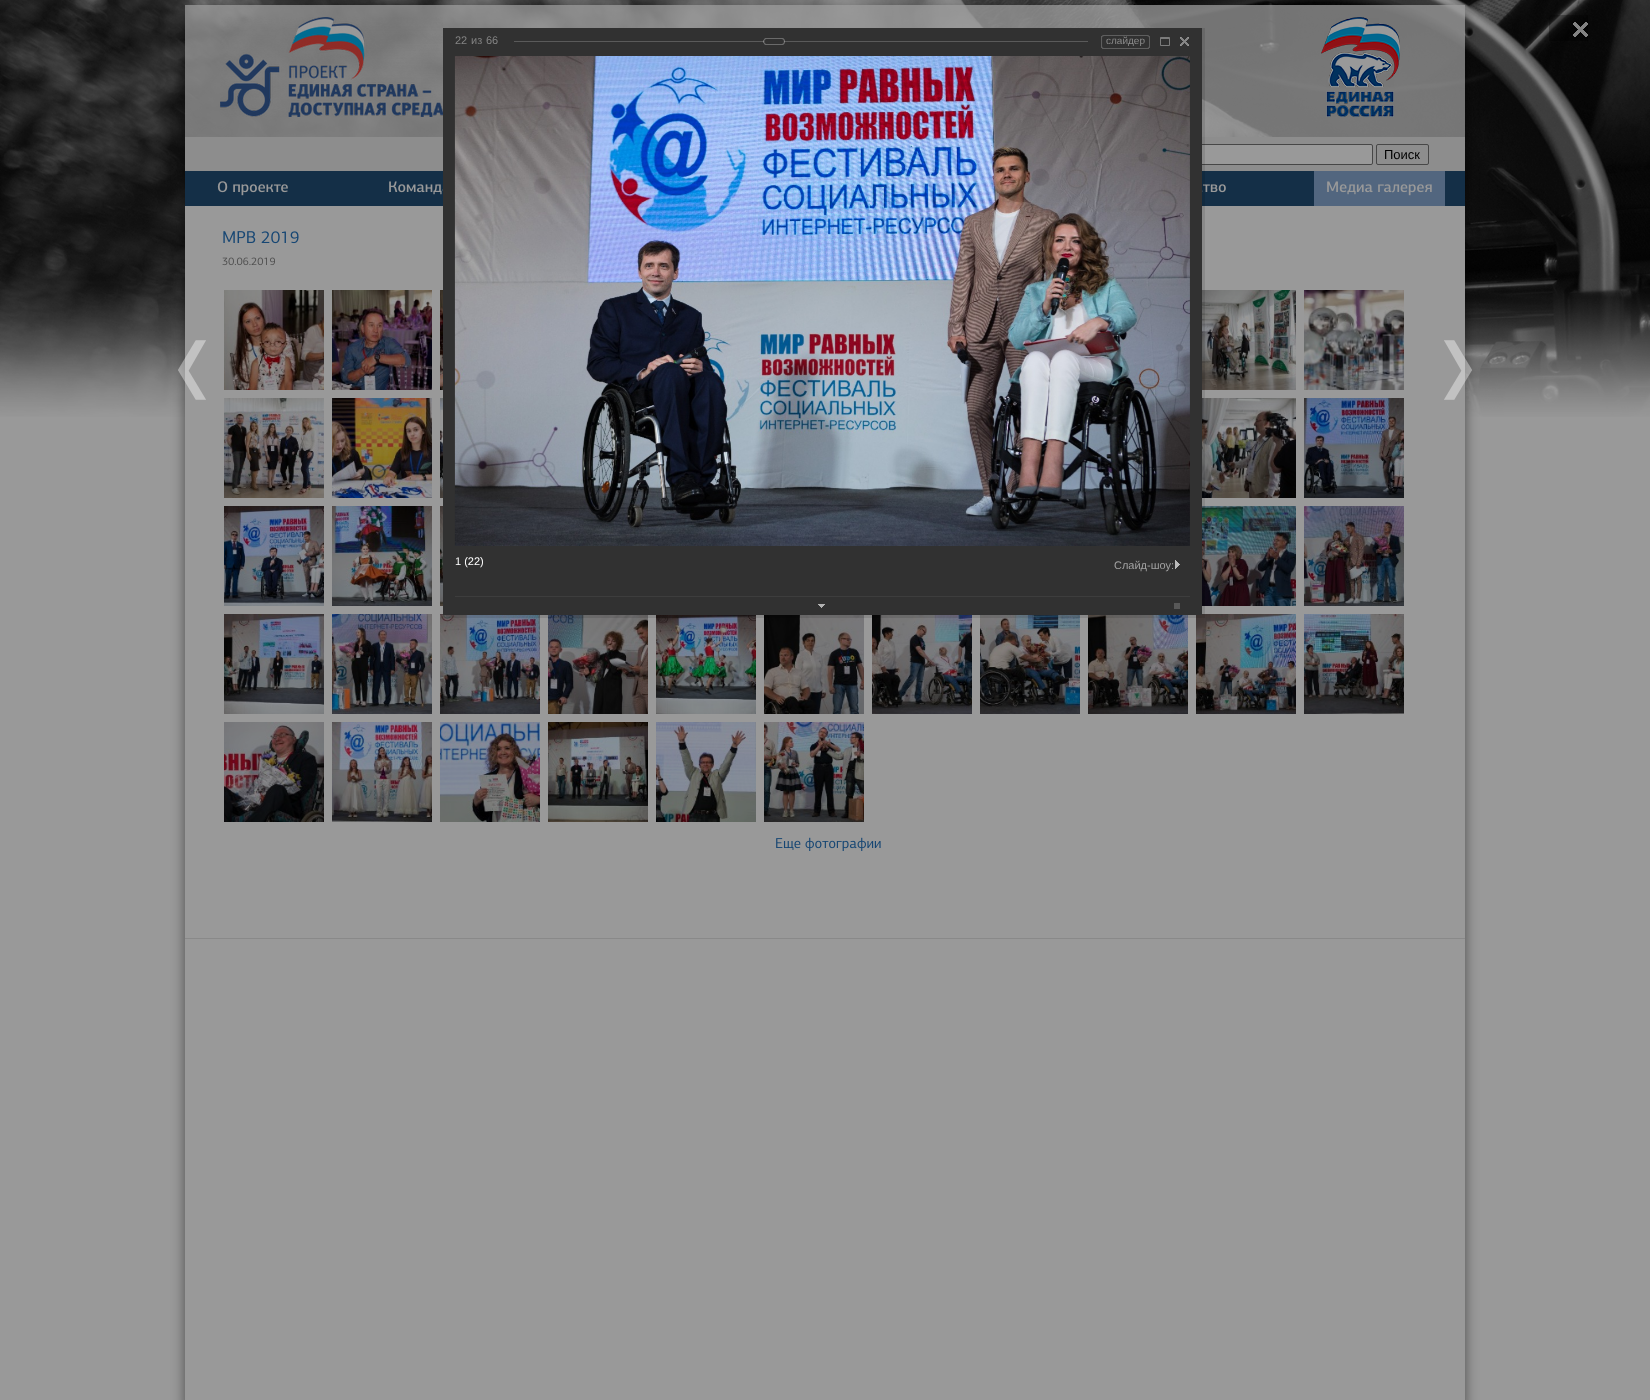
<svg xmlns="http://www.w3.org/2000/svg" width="1650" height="1400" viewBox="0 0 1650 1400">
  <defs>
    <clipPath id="clip1"><path d="M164 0H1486V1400H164ZM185 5H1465V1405H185Z" clip-rule="evenodd"/></clipPath>
  </defs>
  <rect width="100%" height="100%" fill="#999"/>
  <image x="0" y="0" width="1650" height="417" href="img/1.png"/>
  <g clip-path="url(#clip1)">
    <path d="M185 11h1280v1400H185z" fill="#00000080" filter="blur(6.5px)"/>
  </g>
  <path d="M185 206h1280v211H185z" fill="#999"/>
  <image x="178" y="340" width="28" height="60" href="img/2.png"/>
  <path d="M185 5h1280v132H185z" fill="#999999bf"/>
  <path d="M185 137h1280v34H185z" fill="#8d8d8d"/>
  <rect x="1063.5" y="144.5" width="309" height="20" rx="1.5" fill="#999" stroke="#474747"/>
  <path d="M185 171h1280v35H185z" fill="#142f47"/>
  <image x="1202" y="184" width="24" height="9" href="img/17.png"/>
  <image x="1202" y="290" width="94" height="100" href="img/24.png"/>
  <image x="1202" y="398" width="94" height="100" href="img/29.png"/>
  <image x="1202" y="506" width="94" height="100" href="img/34.png"/>
  <image x="440" y="614" width="100" height="100" href="img/38.png"/>
  <image x="548" y="615" width="100" height="99" href="img/39.png"/>
  <image x="656" y="615" width="100" height="99" href="img/40.png"/>
  <image x="764" y="615" width="100" height="99" href="img/41.png"/>
  <image x="872" y="615" width="100" height="99" href="img/42.png"/>
  <image x="980" y="615" width="100" height="99" href="img/43.png"/>
  <image x="1088" y="615" width="100" height="99" href="img/44.png"/>
  <image x="1196" y="614" width="100" height="100" href="img/45.png"/>
  <path d="M446 28h759v590H446z" fill="#0000001a"/>
  <path d="M443 28h759v587H443z" fill="#313131"/>
  <path d="M514 41h574v1H514z" fill="#5a5a5a"/>
  <image x="763" y="38" width="22" height="7" href="img/3.png"/>
  <image x="1101" y="35" width="46" height="14" href="img/4.png"/>
  <image x="1147" y="35" width="3" height="14" href="img/5.png"/>
  <image x="1160" y="37" width="10" height="9" href="img/6.png"/>
  <image x="1180" y="37" width="9" height="9" href="img/7.png"/>
  <image x="454" y="56" width="736" height="490" href="img/8.png"/>
  <path d="M455 596h735v1H455z" fill="#3d3d3d"/>
  <image x="1175" y="560" width="5" height="9" href="img/9.png"/>
  <image x="818" y="604" width="7" height="4" href="img/10.png"/>
  <path d="M1174 603h6v6H1174z" fill="#585858"/>
  <image x="1549" y="15" width="39" height="26" href="img/11.png"/>
  <image x="1444" y="340" width="28" height="60" href="img/12.png"/>
  <image x="220" y="17" width="223" height="100" href="img/13.png"/>
  <image x="1321" y="17" width="79" height="100" href="img/14.png"/>
  <rect x="1376.5" y="144.5" width="52" height="20" rx="1.5" fill="none" stroke="#474747"/>
  <image x="217" y="181" width="71" height="15" href="img/15.png"/>
  <image x="389" y="181" width="54" height="14" href="img/16.png"/>
  <path d="M1314 171h131v35H1314z" fill="#52667f"/>
  <image x="1327" y="181" width="105" height="15" href="img/18.png"/>
  <image x="223" y="231" width="76" height="13" href="img/19.png"/>
  <image x="222" y="257" width="53" height="9" href="img/20.png"/>
  <image x="224" y="290" width="100" height="100" href="img/21.png"/>
  <image x="332" y="290" width="100" height="100" href="img/22.png"/>
  <image x="440" y="290" width="3" height="100" href="img/23.png"/>
  <image x="1304" y="290" width="100" height="100" href="img/25.png"/>
  <image x="224" y="398" width="100" height="100" href="img/26.png"/>
  <image x="332" y="398" width="100" height="100" href="img/27.png"/>
  <image x="440" y="398" width="3" height="100" href="img/28.png"/>
  <image x="1304" y="398" width="100" height="100" href="img/30.png"/>
  <image x="224" y="506" width="100" height="100" href="img/31.png"/>
  <image x="332" y="506" width="100" height="100" href="img/32.png"/>
  <image x="440" y="506" width="3" height="100" href="img/33.png"/>
  <image x="1304" y="506" width="100" height="100" href="img/35.png"/>
  <image x="224" y="614" width="100" height="100" href="img/36.png"/>
  <image x="332" y="614" width="100" height="100" href="img/37.png"/>
  <image x="1304" y="614" width="100" height="100" href="img/46.png"/>
  <image x="224" y="722" width="100" height="100" href="img/47.png"/>
  <image x="332" y="722" width="100" height="100" href="img/48.png"/>
  <image x="440" y="722" width="100" height="100" href="img/49.png"/>
  <image x="548" y="722" width="100" height="100" href="img/50.png"/>
  <image x="656" y="722" width="100" height="100" href="img/51.png"/>
  <image x="764" y="722" width="100" height="100" href="img/52.png"/>
  <image x="776" y="837" width="105" height="14" href="img/53.png"/>
  <path d="M185 938h1280v1H185z" fill="#898989"/>
  <g font-family="Liberation Sans" font-size="11" fill="#838383">
    <text x="455" y="44">22</text>
    <text x="471" y="44">из</text>
    <text x="486" y="44">66</text>
  </g>
  <text x="1106" y="44" font-family="Liberation Sans" font-size="10" fill="#8c8c8c">слайдер</text>
  <text x="455" y="565" font-family="Liberation Sans" font-size="11" fill="#fff">1 (22)</text>
  <text x="1114" y="569" font-family="Liberation Sans" font-size="11" fill="#a2a2a2">Слайд-шоу:</text>
  <text x="1384" y="159" font-family="Liberation Sans" font-size="13" fill="#000">Поиск</text>
</svg>
